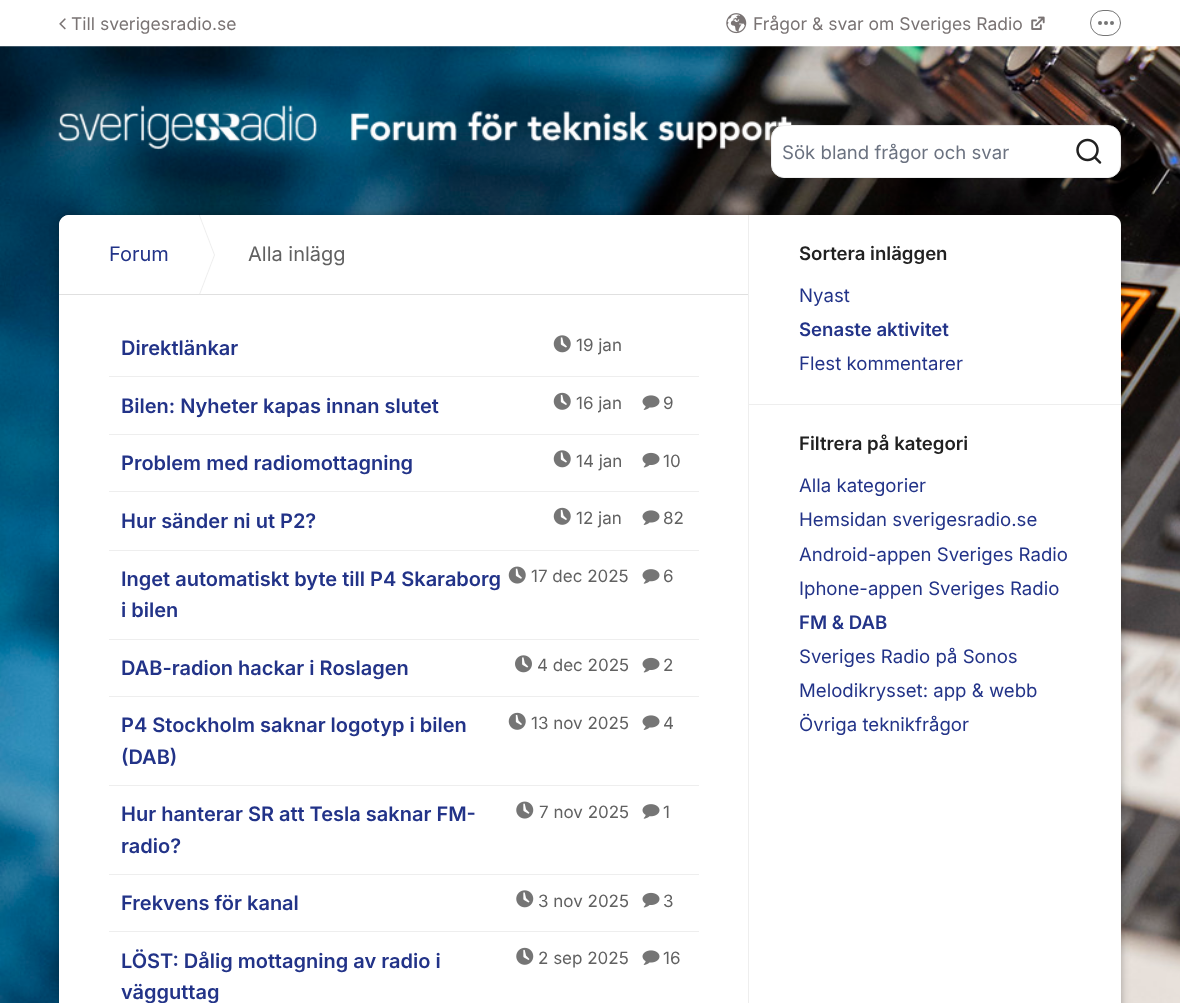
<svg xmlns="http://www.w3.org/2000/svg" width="1180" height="1003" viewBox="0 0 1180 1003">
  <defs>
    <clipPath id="clip1"><path d="M59 215h690v79H59z"/></clipPath>
  </defs>
  <rect width="100%" height="100%" fill="#fff"/>
  <image x="0" y="46" width="1180" height="957" href="img/1.png"/>
  <image x="59" y="18" width="7" height="12" href="img/2.png"/>
  <image x="726" y="13" width="21" height="21" href="img/3.png"/>
  <image x="1031" y="16" width="14" height="14" href="img/4.png"/>
  <rect x="1090.5" y="10.5" width="30" height="25" rx="12.5" fill="none" stroke="#757575"/>
  <circle cx="1100" cy="23" r="2" fill="#757575"/>
  <circle cx="1106" cy="23" r="2" fill="#757575"/>
  <circle cx="1112" cy="23" r="2" fill="#757575"/>
  <image x="58" y="105" width="734" height="45" href="img/5.png"/>
  <rect x="771.5" y="125.5" width="349" height="52" rx="12.5" fill="#fff" stroke="#eee"/>
  <image x="1076" y="138" width="26" height="26" href="img/6.png"/>
  <rect x="59" y="215" width="1062" height="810" rx="10" fill="#0000004d" filter="blur(4px)"/>
  <path d="M69 215H1111C1116.5 215 1121 219.5 1121 225V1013H59V225C59 219.5 63.5 215 69 215Z" fill="#fff"/>
  <rect x="59" y="215" width="690" height="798" rx="10" fill="#fff"/>
  <path d="M59 294h690v1H59z" fill="#e0e0e0"/>
  <g clip-path="url(#clip1)">
    <path d="M196 305V205L215 255Z" fill="#eee"/>
    <path d="M195 305V205L214 255Z" fill="#fff"/>
  </g>
  <path d="M109 376h590v1H109z" fill="#eee"/>
  <image x="553" y="335" width="18" height="18" href="img/7.png"/>
  <path d="M109 434h590v1H109z" fill="#eee"/>
  <image x="553" y="392" width="18" height="18" href="img/8.png"/>
  <image x="642" y="395" width="18" height="15" href="img/9.png"/>
  <path d="M109 491h590v1H109z" fill="#eee"/>
  <image x="553" y="450" width="18" height="18" href="img/7.png"/>
  <image x="642" y="452" width="18" height="16" href="img/10.png"/>
  <path d="M109 550h590v1H109z" fill="#eee"/>
  <image x="553" y="507" width="18" height="18" href="img/8.png"/>
  <image x="642" y="510" width="18" height="15" href="img/9.png"/>
  <path d="M109 639h590v1H109z" fill="#eee"/>
  <image x="508" y="566" width="18" height="18" href="img/11.png"/>
  <image x="642" y="569" width="18" height="15" href="img/12.png"/>
  <path d="M109 696h590v1H109z" fill="#eee"/>
  <image x="515" y="655" width="17" height="18" href="img/13.png"/>
  <image x="642" y="657" width="18" height="16" href="img/10.png"/>
  <path d="M109 785h590v1H109z" fill="#eee"/>
  <image x="508" y="712" width="18" height="18" href="img/8.png"/>
  <image x="642" y="715" width="18" height="15" href="img/9.png"/>
  <path d="M109 874h590v1H109z" fill="#eee"/>
  <image x="516" y="801" width="18" height="18" href="img/14.png"/>
  <image x="642" y="804" width="18" height="15" href="img/12.png"/>
  <path d="M109 931h590v1H109z" fill="#eee"/>
  <image x="516" y="890" width="18" height="18" href="img/15.png"/>
  <image x="642" y="892" width="18" height="16" href="img/10.png"/>
  <image x="516" y="947" width="18" height="18" href="img/16.png"/>
  <image x="642" y="950" width="18" height="15" href="img/9.png"/>
  <path d="M748 215h1v788H748z" fill="#eee"/>
  <path d="M749 404h372v1H749z" fill="#eee"/>
  <g font-family="Inter" font-size="17.5" fill="#7a7474">
    <text x="71" y="30">Till sverigesradio.se</text>
    <text x="753" y="30">Frågor &amp; svar om Sveriges Radio</text>
  </g>
  <text x="782" y="159" font-family="Inter" font-size="18.6" fill="#6b7280">Sök bland frågor och svar</text>
  <text x="109" y="261" font-family="Inter" font-size="20" fill="#238">Forum</text>
  <text x="248" y="261" font-family="Inter" font-size="20" fill="#616161">Alla inlägg</text>
  <text x="121" y="355" font-family="Inter" font-size="20" font-weight="600" fill="#238">Direktlänkar</text>
  <text x="576" y="351" font-family="Inter" font-size="17" fill="#616161">19 jan</text>
  <text x="121" y="413" font-family="Inter" font-size="20" font-weight="600" fill="#238">Bilen: Nyheter kapas innan slutet</text>
  <g font-family="Inter" font-size="17" fill="#616161">
    <text x="576" y="409">16 jan</text>
    <text x="663" y="409">9</text>
  </g>
  <text x="121" y="470" font-family="Inter" font-size="20" font-weight="600" fill="#238">Problem med radiomottagning</text>
  <g font-family="Inter" font-size="17" fill="#616161">
    <text x="576" y="467">14 jan</text>
    <text x="663" y="467">10</text>
  </g>
  <text x="121" y="528" font-family="Inter" font-size="20" font-weight="600" fill="#238">Hur sänder ni ut P2?</text>
  <g font-family="Inter" font-size="17" fill="#616161">
    <text x="576" y="524">12 jan</text>
    <text x="663" y="524">82</text>
  </g>
  <text x="121" y="586" font-family="Inter" font-size="20" font-weight="600" fill="#238">Inget automatiskt byte till P4 Skaraborg</text>
  <g font-family="Inter" font-size="17" fill="#616161">
    <text x="531" y="582">17 dec 2025</text>
    <text x="663" y="582">6</text>
  </g>
  <g font-family="Inter" font-size="20" font-weight="600" fill="#238">
    <text x="121" y="617">i bilen</text>
    <text x="121" y="675">DAB-radion hackar i Roslagen</text>
  </g>
  <g font-family="Inter" font-size="17" fill="#616161">
    <text x="537" y="671">4 dec 2025</text>
    <text x="663" y="671">2</text>
  </g>
  <text x="121" y="732" font-family="Inter" font-size="20" font-weight="600" fill="#238">P4 Stockholm saknar logotyp i bilen</text>
  <g font-family="Inter" font-size="17" fill="#616161">
    <text x="531" y="729">13 nov 2025</text>
    <text x="663" y="729">4</text>
  </g>
  <g font-family="Inter" font-size="20" font-weight="600" fill="#238">
    <text x="121" y="764">(DAB)</text>
    <text x="121" y="821">Hur hanterar SR att Tesla saknar FM-</text>
  </g>
  <g font-family="Inter" font-size="17" fill="#616161">
    <text x="539" y="818">7 nov 2025</text>
    <text x="663" y="818">1</text>
  </g>
  <g font-family="Inter" font-size="20" font-weight="600" fill="#238">
    <text x="121" y="853">radio?</text>
    <text x="121" y="910">Frekvens för kanal</text>
  </g>
  <g font-family="Inter" font-size="17" fill="#616161">
    <text x="538" y="907">3 nov 2025</text>
    <text x="663" y="907">3</text>
  </g>
  <text x="121" y="968" font-family="Inter" font-size="20" font-weight="600" fill="#238">LÖST: Dålig mottagning av radio i</text>
  <g font-family="Inter" font-size="17" fill="#616161">
    <text x="538" y="964">2 sep 2025</text>
    <text x="663" y="964">16</text>
  </g>
  <text x="121" y="999" font-family="Inter" font-size="20" font-weight="600" fill="#238">vägguttag</text>
  <text x="799" y="260" font-family="Inter" font-size="18.6" font-weight="600" fill="#212121">Sortera inläggen</text>
  <text x="799" y="302" font-family="Inter" font-size="18.6" fill="#238">Nyast</text>
  <text x="799" y="336" font-family="Inter" font-size="18.6" font-weight="600" fill="#238">Senaste aktivitet</text>
  <text x="799" y="370" font-family="Inter" font-size="18.6" fill="#238">Flest kommentarer</text>
  <text x="799" y="450" font-family="Inter" font-size="18.6" font-weight="600" fill="#212121">Filtrera på kategori</text>
  <g font-family="Inter" font-size="18.6" fill="#238">
    <text x="799" y="492">Alla kategorier</text>
    <text x="799" y="526">Hemsidan sverigesradio.se</text>
    <text x="799" y="561">Android-appen Sveriges Radio</text>
    <text x="799" y="595">Iphone-appen Sveriges Radio</text>
  </g>
  <text x="799" y="629" font-family="Inter" font-size="18.6" font-weight="600" fill="#238">FM &amp; DAB</text>
  <g font-family="Inter" font-size="18.6" fill="#238">
    <text x="799" y="663">Sveriges Radio på Sonos</text>
    <text x="799" y="697">Melodikrysset: app &amp; webb</text>
    <text x="799" y="731">Övriga teknikfrågor</text>
  </g>
</svg>
